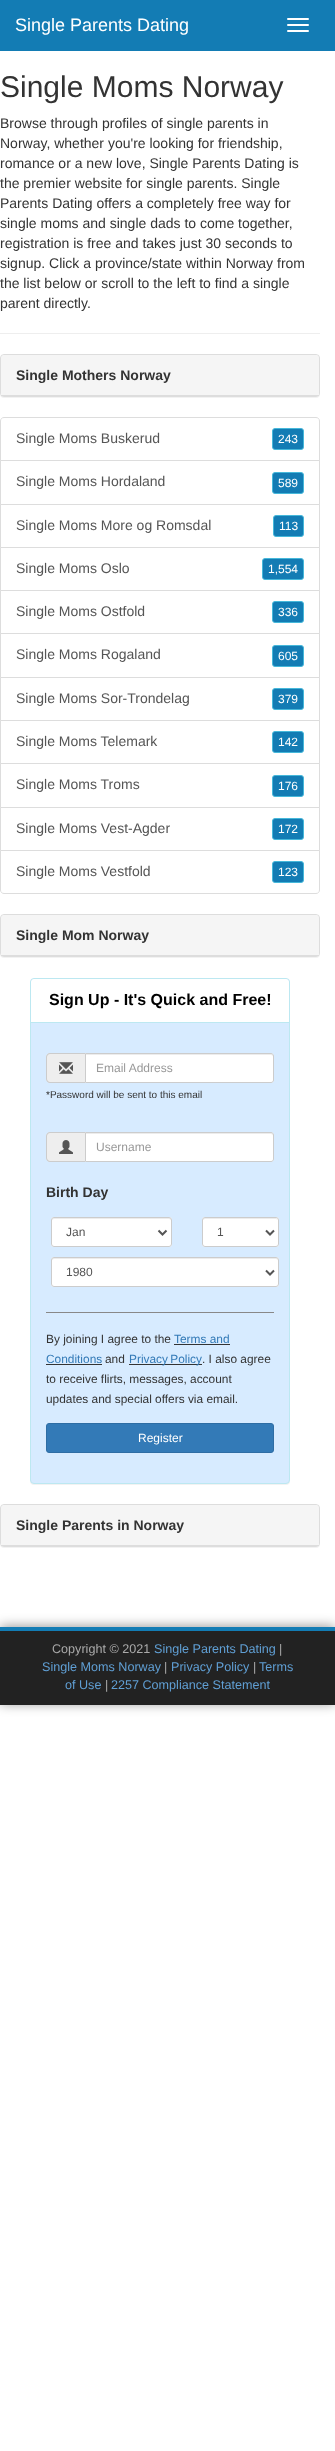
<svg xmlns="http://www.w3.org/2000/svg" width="335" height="2451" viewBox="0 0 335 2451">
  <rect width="100%" height="100%" fill="#fff"/>
  <path d="M0 0h335v51H0z" fill="#137cb4"/>
  <rect x="287" y="18" width="22" height="2" rx="1" fill="#fff"/>
  <rect x="287" y="24" width="22" height="2" rx="1" fill="#fff"/>
  <rect x="287" y="30" width="22" height="2" rx="1" fill="#fff"/>
  <path d="M0 333h320v1H0z" fill="#eee"/>
  <rect y="355" width="320" height="43" rx="4" fill="#0000000d" filter="blur(0.5px)"/>
  <rect x="0.5" y="354.5" width="319" height="42" rx="3.5" fill="none" stroke="#ddd"/>
  <path d="M4 355H316C317.5 355 319 356.5 319 358V396H1V358C1 356.5 2.5 355 4 355Z" fill="#f5f5f5"/>
  <path d="M1 395h318v1H1z" fill="#ddd"/>
  <path d="M4 417.5H316C318 417.5 319.5 419 319.5 421V460.5H.5V421C.5 419 2 417.5 4 417.5Z" fill="none" stroke="#ddd"/>
  <rect x="272.5" y="428.5" width="31" height="21" rx="2.5" fill="#137cb4" stroke="#46b8da"/>
  <path d="M0.5 460.5h319v44H0.5z" fill="none" stroke="#ddd"/>
  <rect x="272.5" y="472.5" width="31" height="21" rx="2.5" fill="#137cb4" stroke="#46b8da"/>
  <path d="M0.5 504.5h319v43H0.5z" fill="none" stroke="#ddd"/>
  <rect x="273.5" y="515.5" width="30" height="21" rx="2.5" fill="#137cb4" stroke="#46b8da"/>
  <path d="M0.5 547.5h319v43H0.5z" fill="none" stroke="#ddd"/>
  <rect x="262.5" y="558.5" width="41" height="21" rx="2.5" fill="#137cb4" stroke="#46b8da"/>
  <path d="M0.5 590.5h319v43H0.5z" fill="none" stroke="#ddd"/>
  <rect x="272.5" y="601.5" width="31" height="21" rx="2.5" fill="#137cb4" stroke="#46b8da"/>
  <path d="M0.5 633.5h319v44H0.5z" fill="none" stroke="#ddd"/>
  <rect x="272.5" y="645.5" width="31" height="21" rx="2.5" fill="#137cb4" stroke="#46b8da"/>
  <path d="M0.5 677.5h319v43H0.5z" fill="none" stroke="#ddd"/>
  <rect x="272.5" y="688.5" width="31" height="21" rx="2.5" fill="#137cb4" stroke="#46b8da"/>
  <path d="M0.5 720.5h319v43H0.5z" fill="none" stroke="#ddd"/>
  <rect x="272.5" y="731.5" width="31" height="21" rx="2.5" fill="#137cb4" stroke="#46b8da"/>
  <path d="M0.5 763.5h319v44H0.5z" fill="none" stroke="#ddd"/>
  <rect x="272.5" y="775.5" width="31" height="21" rx="2.5" fill="#137cb4" stroke="#46b8da"/>
  <path d="M0.5 807.5h319v43H0.5z" fill="none" stroke="#ddd"/>
  <rect x="272.5" y="818.5" width="31" height="21" rx="2.5" fill="#137cb4" stroke="#46b8da"/>
  <path d="M.5 850.5H319.5V890C319.5 892 318 893.5 316 893.5H4C2 893.5 .5 892 .5 890Z" fill="#fff" stroke="#ddd"/>
  <rect x="272.5" y="861.5" width="31" height="21" rx="2.5" fill="#137cb4" stroke="#46b8da"/>
  <rect y="915" width="320" height="43" rx="4" fill="#0000000d" filter="blur(0.5px)"/>
  <rect x="0.5" y="914.5" width="319" height="42" rx="3.5" fill="none" stroke="#ddd"/>
  <path d="M4 915H316C317.5 915 319 916.5 319 918V956H1V918C1 916.5 2.5 915 4 915Z" fill="#f5f5f5"/>
  <path d="M1 955h318v1H1z" fill="#ddd"/>
  <rect x="30" y="979" width="260" height="506" rx="4" fill="#0000000d" filter="blur(0.5px)"/>
  <rect x="30.5" y="978.5" width="259" height="505" rx="3.5" fill="#d7ebff" stroke="#bce8f1"/>
  <path d="M34 979H286C287.5 979 289 980.5 289 982V1023H31V982C31 980.5 32.5 979 34 979Z" fill="#fff"/>
  <path d="M31 1022h258v1H31z" fill="#bce8f1"/>
  <path d="M50 1053H85V1083H50C48 1083 46 1081 46 1079V1057C46 1055 48 1053 50 1053Z" fill="#eee"/>
  <path d="M50 1053H85V1083H50C48 1083 46 1081 46 1079V1057C46 1055 48 1053 50 1053ZM50 1054H85V1082H50C48.5 1082 47 1080.5 47 1079V1057C47 1055.5 48.5 1054 50 1054Z" fill="#ccc" fill-rule="evenodd"/>
  <image x="59" y="1062" width="14" height="12" href="img/1.png"/>
  <path d="M85 1053H271C272.5 1053 274 1054.5 274 1056V1080C274 1081.5 272.5 1083 271 1083H85Z" fill="#fff"/>
  <path d="M86 1055H271C272 1055 273 1056 273 1057C273 1056 273 1055 272 1054H86Z" fill="#ececec"/>
  <path d="M85.5 1053.5H271C272.5 1053.5 273.5 1054.5 273.5 1056V1080C273.5 1081.5 272.5 1082.5 271 1082.5H85.5Z" fill="none" stroke="#ccc"/>
  <path d="M50 1132H85V1162H50C48 1162 46 1160 46 1158V1136C46 1134 48 1132 50 1132Z" fill="#eee"/>
  <path d="M50 1132H85V1162H50C48 1162 46 1160 46 1158V1136C46 1134 48 1132 50 1132ZM50 1133H85V1161H50C48.5 1161 47 1159.5 47 1158V1136C47 1134.5 48.5 1133 50 1133Z" fill="#ccc" fill-rule="evenodd"/>
  <image x="59" y="1140" width="14" height="14" href="img/2.png"/>
  <path d="M85 1132H271C272.5 1132 274 1133.5 274 1135V1159C274 1160.5 272.5 1162 271 1162H85Z" fill="#fff"/>
  <path d="M86 1134H271C272 1134 273 1135 273 1136C273 1135 273 1134 272 1133H86Z" fill="#ececec"/>
  <path d="M85.5 1132.5H271C272.5 1132.5 273.5 1133.5 273.5 1135V1159C273.5 1160.5 272.5 1161.5 271 1161.5H85.5Z" fill="none" stroke="#ccc"/>
  <rect x="51" y="1217" width="121" height="30" rx="3" fill="#fff"/>
  <path d="M54 1219H169C170 1219 171 1220 171 1221C171 1220 171 1219 170 1218H73C67 1218 52 1214 52 1221C52 1220 53 1219 54 1219Z" fill="#ececec"/>
  <rect x="51.5" y="1217.5" width="120" height="29" rx="2.5" fill="none" stroke="#ccc"/>
  <path d="M158.5 1230.5L162.5 1234.5L166.5 1230.5" fill="none" stroke="#555" stroke-width="2"/>
  <rect x="202" y="1217" width="77" height="30" rx="3" fill="#fff"/>
  <path d="M205 1219H276L278 1220L277 1219L276 1218H205C203 1218 203 1219 203 1220C203 1220 204 1219 205 1219ZM203 1245V1241Z" fill="#ececec" fill-rule="evenodd"/>
  <rect x="202.5" y="1217.5" width="76" height="29" rx="2.5" fill="none" stroke="#ccc"/>
  <path d="M266 1230.5L270 1234.5L274 1230.5" fill="none" stroke="#555" stroke-width="2"/>
  <rect x="51" y="1257" width="228" height="30" rx="3" fill="#fff"/>
  <path d="M54 1259H276C277 1259 278 1260 278 1261C278 1260 278 1258 276 1258H53C52 1259 52 1260 52 1261C52 1260 53 1259 54 1259Z" fill="#ececec"/>
  <rect x="51.5" y="1257.5" width="227" height="29" rx="2.5" fill="none" stroke="#ccc"/>
  <path d="M266 1270.5L270 1274.5L274 1270.5" fill="none" stroke="#555" stroke-width="2"/>
  <path d="M46 1312h228v1H46z" fill="#888"/>
  <path d="M174 1344h56v1H174z" fill="#333"/>
  <path d="M46 1364h56v1H46z" fill="#333"/>
  <path d="M129 1364h73v1H129z" fill="#333"/>
  <rect x="46.5" y="1423.5" width="227" height="29" rx="2.5" fill="#337ab7" stroke="#2e6da4"/>
  <rect y="1505" width="320" height="43" rx="4" fill="#0000000d" filter="blur(0.5px)"/>
  <rect x="0.5" y="1504.5" width="319" height="42" rx="3.5" fill="none" stroke="#ddd"/>
  <path d="M4 1505H316C317.5 1505 319 1506.5 319 1508V1546H1V1508C1 1506.5 2.5 1505 4 1505Z" fill="#f5f5f5"/>
  <path d="M1 1545h318v1H1z" fill="#ddd"/>
  <path d="M0 1626h335v78H0z" fill="#00000066" filter="blur(6px)"/>
  <path d="M0 1631h335v74H0z" fill="#222"/>
  <path d="M0 1627h335v4H0z" fill="#137cb4"/>
  <text x="15" y="31" font-family="Liberation Sans" font-size="18" fill="#fff">Single Parents Dating</text>
  <text x="0" y="97" font-family="Liberation Sans" font-size="30" fill="#333">Single Moms Norway</text>
  <g font-family="Liberation Sans" font-size="14" fill="#333">
    <text x="0" y="128">Browse through profiles of single parents in</text>
    <text x="0" y="148">Norway, whether you're looking for friendship,</text>
    <text x="0" y="168">romance or a new love, Single Parents Dating is</text>
    <text x="0" y="188">the premier website for single parents. Single</text>
    <text x="0" y="208">Parents Dating offers a completely free way for</text>
    <text x="0" y="228">single moms and single dads to come together,</text>
    <text x="0" y="248">registration is free and takes just 30 seconds to</text>
    <text x="0" y="268">signup. Click a province/state within Norway from</text>
    <text x="0" y="288">the list below or scroll to the left to find a single</text>
    <text x="0" y="308">parent directly.</text>
  </g>
  <text x="16" y="380" font-family="Liberation Sans" font-size="14" font-weight="bold" fill="#333">Single Mothers Norway</text>
  <text x="16" y="443" font-family="Liberation Sans" font-size="14" fill="#555">Single Moms Buskerud</text>
  <text x="278" y="443" font-family="Liberation Sans" font-size="12" fill="#fff">243</text>
  <text x="16" y="486" font-family="Liberation Sans" font-size="14" fill="#555">Single Moms Hordaland</text>
  <text x="278" y="487" font-family="Liberation Sans" font-size="12" fill="#fff">589</text>
  <text x="16" y="530" font-family="Liberation Sans" font-size="14" fill="#555">Single Moms More og Romsdal</text>
  <text x="279" y="530" font-family="Liberation Sans" font-size="12" fill="#fff">113</text>
  <text x="16" y="573" font-family="Liberation Sans" font-size="14" fill="#555">Single Moms Oslo</text>
  <text x="268" y="573" font-family="Liberation Sans" font-size="12" fill="#fff">1,554</text>
  <text x="16" y="616" font-family="Liberation Sans" font-size="14" fill="#555">Single Moms Ostfold</text>
  <text x="278" y="616" font-family="Liberation Sans" font-size="12" fill="#fff">336</text>
  <text x="16" y="659" font-family="Liberation Sans" font-size="14" fill="#555">Single Moms Rogaland</text>
  <text x="278" y="660" font-family="Liberation Sans" font-size="12" fill="#fff">605</text>
  <text x="16" y="703" font-family="Liberation Sans" font-size="14" fill="#555">Single Moms Sor-Trondelag</text>
  <text x="278" y="703" font-family="Liberation Sans" font-size="12" fill="#fff">379</text>
  <text x="16" y="746" font-family="Liberation Sans" font-size="14" fill="#555">Single Moms Telemark</text>
  <text x="278" y="746" font-family="Liberation Sans" font-size="12" fill="#fff">142</text>
  <text x="16" y="789" font-family="Liberation Sans" font-size="14" fill="#555">Single Moms Troms</text>
  <text x="278" y="790" font-family="Liberation Sans" font-size="12" fill="#fff">176</text>
  <text x="16" y="833" font-family="Liberation Sans" font-size="14" fill="#555">Single Moms Vest-Agder</text>
  <text x="278" y="833" font-family="Liberation Sans" font-size="12" fill="#fff">172</text>
  <text x="16" y="876" font-family="Liberation Sans" font-size="14" fill="#555">Single Moms Vestfold</text>
  <text x="278" y="876" font-family="Liberation Sans" font-size="12" fill="#fff">123</text>
  <text x="16" y="940" font-family="Liberation Sans" font-size="14" font-weight="bold" fill="#333">Single Mom Norway</text>
  <text x="49" y="1005" font-family="Liberation Sans" font-size="16" font-weight="bold" fill="#000">Sign Up - It's Quick and Free!</text>
  <text x="96" y="1072" font-family="Liberation Sans" font-size="12" fill="#999">Email Address</text>
  <text x="46" y="1098" font-family="Liberation Sans" font-size="10" fill="#333">*Password will be sent to this email</text>
  <text x="96" y="1151" font-family="Liberation Sans" font-size="12" fill="#999">Username</text>
  <text x="46" y="1197" font-family="Liberation Sans" font-size="14" font-weight="bold" fill="#333">Birth Day</text>
  <g font-family="Liberation Sans" font-size="12" fill="#555">
    <text x="66" y="1236">Jan</text>
    <text x="217" y="1236">1</text>
    <text x="66" y="1276">1980</text>
  </g>
  <text x="46" y="1343" font-family="Liberation Sans" font-size="11.9" fill="#333">By joining I agree to the</text>
  <g font-family="Liberation Sans" font-size="11.9" fill="#337ab7">
    <text x="174" y="1343">Terms and</text>
    <text x="46" y="1363">Conditions</text>
  </g>
  <text x="105" y="1363" font-family="Liberation Sans" font-size="11.9" fill="#333">and</text>
  <text x="129" y="1363" word-spacing="-1" font-family="Liberation Sans" font-size="11.9" fill="#337ab7">Privacy Policy</text>
  <g font-family="Liberation Sans" font-size="11.9" fill="#333">
    <text x="202" y="1363">. I also agree</text>
    <text x="46" y="1383">to receive flirts, messages, account</text>
    <text x="46" y="1403">updates and special offers via email.</text>
  </g>
  <text x="138" y="1442" font-family="Liberation Sans" font-size="12" fill="#fff">Register</text>
  <text x="16" y="1530" font-family="Liberation Sans" font-size="14" font-weight="bold" fill="#333">Single Parents in Norway</text>
  <text x="52" y="1653" font-family="Liberation Sans" font-size="12.6" fill="#aaa">Copyright © 2021</text>
  <text x="154" y="1653" font-family="Liberation Sans" font-size="12.6" fill="#609fd4">Single Parents Dating</text>
  <text x="279" y="1653" font-family="Liberation Sans" font-size="12.6" fill="#aaa">|</text>
  <text x="42" y="1671" font-family="Liberation Sans" font-size="12.6" fill="#609fd4">Single Moms Norway</text>
  <text x="164" y="1671" font-family="Liberation Sans" font-size="12.6" fill="#aaa">|</text>
  <text x="171" y="1671" font-family="Liberation Sans" font-size="12.6" fill="#609fd4">Privacy Policy</text>
  <text x="253" y="1671" font-family="Liberation Sans" font-size="12.6" fill="#aaa">|</text>
  <g font-family="Liberation Sans" font-size="12.6" fill="#609fd4">
    <text x="259" y="1671">Terms</text>
    <text x="65" y="1689">of Use</text>
  </g>
  <text x="105" y="1689" font-family="Liberation Sans" font-size="12.6" fill="#aaa">|</text>
  <text x="111" y="1689" font-family="Liberation Sans" font-size="12.6" fill="#609fd4">2257 Compliance Statement</text>
</svg>
